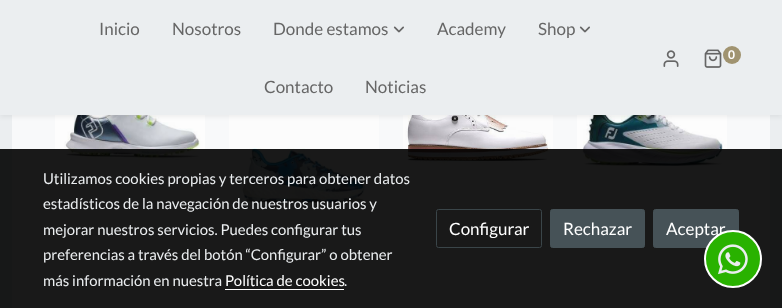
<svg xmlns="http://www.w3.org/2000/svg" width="782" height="308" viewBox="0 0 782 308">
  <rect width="100%" height="100%" fill="#ebeef0"/>
  <path d="M12 115h758v193H12z" fill="#f8f9fa"/>
  <image x="55" y="115" width="150" height="91" href="img/4.png"/>
  <image x="229" y="115" width="150" height="91" href="img/5.png"/>
  <image x="403" y="115" width="150" height="91" href="img/6.png"/>
  <image x="577" y="115" width="150" height="91" href="img/7.png"/>
  <path d="M0 2h782v115H0z" fill="#0000000f" filter="blur(2.5px)"/>
  <path d="M0 0h782v115H0z" fill="#ebeef0"/>
  <image x="393" y="26" width="11" height="7" href="img/1.png"/>
  <image x="579" y="26" width="11" height="7" href="img/1.png"/>
  <image x="663" y="50" width="16" height="17" href="img/2.png"/>
  <image x="704" y="49" width="18" height="19" href="img/3.png"/>
  <circle cx="732" cy="55" r="9" fill="#a09370"/>
  <path d="M0 149h782v159H0z" fill="#000000e6"/>
  <path d="M225 289h119v1H225z" fill="#fff"/>
  <rect x="436.5" y="209.5" width="105" height="38" rx="2" fill="none" stroke="#3a4549"/>
  <rect x="550.5" y="209.5" width="94" height="38" rx="2" fill="#465257" stroke="#465257"/>
  <rect x="653.5" y="209.5" width="85" height="38" rx="2" fill="#465257" stroke="#465257"/>
  <g font-family="Lato" font-size="17" fill="#666">
    <text x="99" y="35">Inicio</text>
    <text x="172" y="35">Nosotros</text>
    <text x="273" y="35">Donde estamos</text>
    <text x="437" y="35">Academy</text>
    <text x="538" y="35">Shop</text>
    <text x="264" y="93">Contacto</text>
    <text x="365" y="93">Noticias</text>
  </g>
  <text x="728" y="59" font-family="Lato" font-size="12" font-weight="bold" fill="#fff">0</text>
  <g font-family="Lato" font-size="14.9" fill="#ebeef0">
    <text x="43" y="184">Utilizamos cookies propias y terceros para obtener datos</text>
    <text x="43" y="209">estadísticos de la navegación de nuestros usuarios y</text>
    <text x="43" y="235">mejorar nuestros servicios. Puedes configurar tus</text>
    <text x="43" y="260">preferencias a través del botón “Configurar” o obtener</text>
    <text x="43" y="286">más información en nuestra</text>
  </g>
  <text x="225" y="286" font-family="Lato" font-size="14.9" fill="#fff">Política de cookies</text>
  <text x="344" y="286" font-family="Lato" font-size="14.9" fill="#ebeef0">.</text>
  <g font-family="Lato" font-size="17" fill="#fff">
    <text x="449" y="235">Configurar</text>
    <text x="563" y="235">Rechazar</text>
    <text x="666" y="235">Aceptar</text>
  </g>
  <circle cx="733" cy="259" r="28" fill="#29b200" stroke="#fff" stroke-width="2"/>
  <image x="718" y="244" width="30" height="31" href="img/8.png"/>
</svg>
